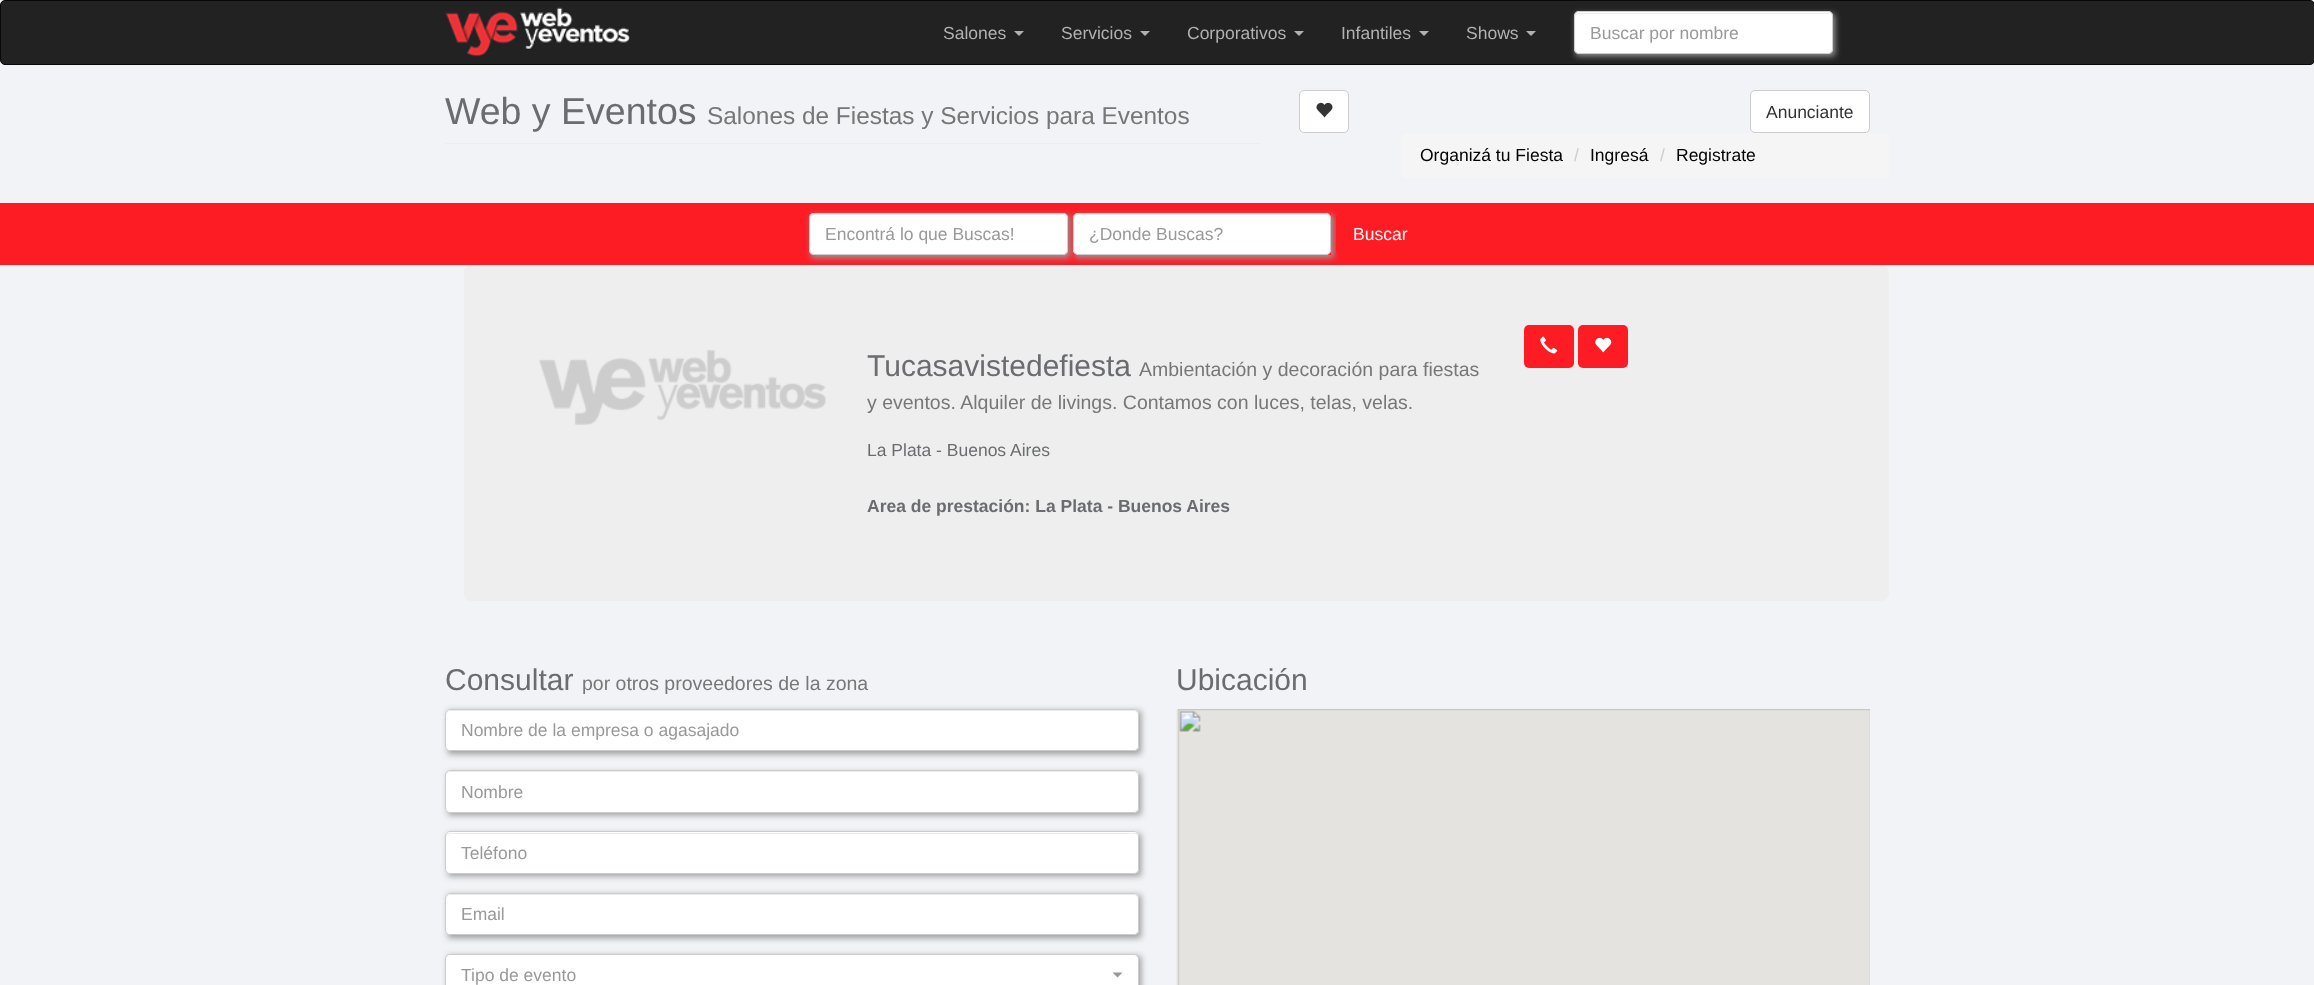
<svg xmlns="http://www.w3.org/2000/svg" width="2314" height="985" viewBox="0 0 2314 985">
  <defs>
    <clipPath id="clip1"><path d="M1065 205H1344V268H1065ZM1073 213H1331V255H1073Z" clip-rule="evenodd"/></clipPath>
  </defs>
  <rect width="100%" height="100%" fill="#f1f3f6"/>
  <rect x="0.5" y="0.5" width="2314" height="64" rx="4.5" fill="#222" stroke="#080808"/>
  <image x="445" y="7" width="185" height="50" href="img/1.png"/>
  <path d="M1014 31H1024L1019 36Z" fill="#b1b1b1"/>
  <path d="M1140 31H1150L1145 36Z" fill="#b1b1b1"/>
  <path d="M1294 31H1304L1299 36Z" fill="#b1b1b1"/>
  <path d="M1419 31H1429L1424 36Z" fill="#b1b1b1"/>
  <path d="M1526 31H1536L1531 36Z" fill="#b1b1b1"/>
  <path d="M1576 14h259v42H1576z" fill="#999" filter="blur(3px)"/>
  <rect x="1574" y="11" width="259" height="43" rx="5" fill="#fff"/>
  <path d="M1579 14H1828C1830 14 1831 15 1831 18V17C1831 15 1829 13 1827 13H1579C1577 13 1575 15 1575 17V18C1575 15 1577 14 1579 14Z" fill="#ececec"/>
  <rect x="1574.5" y="11.5" width="258" height="42" rx="4.5" fill="none" stroke="#ccc"/>
  <path d="M445 143h816v1H445z" fill="#eee"/>
  <rect x="1299.5" y="90.5" width="49" height="42" rx="4.5" fill="#fff" stroke="#ccc"/>
  <image x="1316" y="102" width="17" height="16" href="img/2.png"/>
  <rect x="1750.5" y="90.5" width="119" height="42" rx="4.5" fill="#fff" stroke="#ccc"/>
  <rect x="1401" y="133" width="488" height="45" rx="5" fill="#f5f5f5"/>
  <path d="M0 203h2314v62H0z" fill="#fd1b24"/>
  <rect x="464" y="265" width="1425" height="336" rx="8" fill="#eee"/>
  <path d="M811 215h259v43H811z" fill="#999" filter="blur(3px)"/>
  <g clip-path="url(#clip1)">
    <path d="M1075 215h259v43H1075z" fill="#999" filter="blur(3px)"/>
  </g>
  <rect x="809" y="213" width="259" height="42" rx="5" fill="#fff"/>
  <path d="M814 215H1062C1065 215 1066 217 1066 219V218C1066 216 1064 214 1062 214H814C812 214 810 216 810 218V219C810 217 812 215 814 215Z" fill="#ececec"/>
  <rect x="809.5" y="213.5" width="258" height="41" rx="4.5" fill="none" stroke="#ccc"/>
  <rect x="1073" y="213" width="258" height="42" rx="5" fill="#fff"/>
  <path d="M1078 215H1327L1329 217L1330 219V218C1330 216 1328 214 1326 214H1078C1076 214 1074 216 1074 218V219C1074 217 1075 215 1078 215Z" fill="#ececec"/>
  <rect x="1073.5" y="213.5" width="257" height="41" rx="4.5" fill="none" stroke="#ccc"/>
  <rect x="1336" y="213" width="88" height="42" rx="5" fill="#fd1b24"/>
  <image x="539" y="350" width="287" height="75" href="img/3.png"/>
  <rect x="1524" y="325" width="50" height="43" rx="5" fill="#fd1b24"/>
  <image x="1540" y="336" width="18" height="18" href="img/4.png"/>
  <rect x="1578" y="325" width="50" height="43" rx="5" fill="#fd1b24"/>
  <image x="1595" y="337" width="17" height="16" href="img/5.png"/>
  <path d="M448 711h693v43H448z" fill="#999" filter="blur(3px)"/>
  <rect x="445" y="709" width="694" height="42" rx="5" fill="#fff"/>
  <path d="M450 711H1134C1136 711 1138 713 1138 715C1138 712 1137 710 1134 710H450L447 711L446 712V715C446 713 448 711 450 711Z" fill="#ececec"/>
  <rect x="445.5" y="709.5" width="693" height="41" rx="4.5" fill="none" stroke="#ccc"/>
  <path d="M448 773h693v42H448z" fill="#999" filter="blur(3px)"/>
  <rect x="445" y="770" width="694" height="43" rx="5" fill="#fff"/>
  <path d="M450 772H1134C1136 772 1138 774 1138 776C1138 773 1137 771 1134 771H450L447 772L446 773V776C446 774 448 772 450 772Z" fill="#ececec"/>
  <rect x="445.5" y="770.5" width="693" height="42" rx="4.5" fill="none" stroke="#ccc"/>
  <path d="M448 834h693v42H448z" fill="#999" filter="blur(3px)"/>
  <rect x="445" y="831" width="694" height="43" rx="5" fill="#fff"/>
  <path d="M450 834H1134C1136 834 1138 835 1138 838C1138 835 1137 833 1134 833H450L447 834L446 835V838C446 835 448 834 450 834Z" fill="#ececec"/>
  <rect x="445.5" y="831.5" width="693" height="42" rx="4.5" fill="none" stroke="#ccc"/>
  <path d="M448 895h693v43H448z" fill="#999" filter="blur(3px)"/>
  <rect x="445" y="893" width="694" height="42" rx="5" fill="#fff"/>
  <path d="M450 895H1134C1136 895 1138 897 1138 899C1138 896 1137 894 1134 894H450L447 895L446 896V899C446 897 448 895 450 895Z" fill="#ececec"/>
  <rect x="445.5" y="893.5" width="693" height="41" rx="4.5" fill="none" stroke="#ccc"/>
  <path d="M448 956h693v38H448z" fill="#999" filter="blur(3px)"/>
  <rect x="445.5" y="954.5" width="693" height="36" rx="4.5" fill="#fff" stroke="#ccc"/>
  <path d="M1112.5 972.5H1122.5L1117.5 977.5Z" fill="#999"/>
  <image x="1176" y="709" width="694" height="276" href="img/6.png"/>
  <g font-family="Liberation Sans" font-size="17.5" fill="#b1b1b1">
    <text x="943" y="39">Salones</text>
    <text x="1061" y="39">Servicios</text>
    <text x="1187" y="39">Corporativos</text>
    <text x="1341" y="39">Infantiles</text>
    <text x="1466" y="39">Shows</text>
  </g>
  <text x="1590" y="39" font-family="Liberation Sans" font-size="17.5" fill="#999">Buscar por nombre</text>
  <text x="445" y="124" font-family="Liberation Sans" font-size="37.5" fill="#6a6c6f">Web y Eventos</text>
  <text x="707" y="124" font-family="Liberation Sans" font-size="24.4" fill="#777">Salones de Fiestas y Servicios para Eventos</text>
  <text x="1766" y="118" font-family="Liberation Sans" font-size="17.5" fill="#333">Anunciante</text>
  <text x="1420" y="161" font-family="Liberation Sans" font-size="17.5" fill="#000">Organizá tu Fiesta</text>
  <text x="1574" y="161" font-family="Liberation Sans" font-size="17.5" fill="#ccc">/</text>
  <text x="1590" y="161" font-family="Liberation Sans" font-size="17.5" fill="#000">Ingresá</text>
  <text x="1660" y="161" font-family="Liberation Sans" font-size="17.5" fill="#ccc">/</text>
  <text x="1676" y="161" font-family="Liberation Sans" font-size="17.5" fill="#000">Registrate</text>
  <g font-family="Liberation Sans" font-size="17.5" fill="#999">
    <text x="825" y="240">Encontrá lo que Buscas!</text>
    <text x="1089" y="240">¿Donde Buscas?</text>
  </g>
  <text x="1353" y="240" font-family="Liberation Sans" font-size="17.5" fill="#fff">Buscar</text>
  <text x="867" y="376" font-family="Liberation Sans" font-size="30" fill="#6a6c6f">Tucasavistedefiesta</text>
  <g font-family="Liberation Sans" font-size="19.5" fill="#777">
    <text x="1139" y="376">Ambientación y decoración para fiestas</text>
    <text x="867" y="409">y eventos. Alquiler de livings. Contamos con luces, telas, velas.</text>
  </g>
  <text x="867" y="456" font-family="Liberation Sans" font-size="17.5" fill="#6a6c6f">La Plata - Buenos Aires</text>
  <text x="867" y="512" font-family="Liberation Sans" font-size="17.5" font-weight="bold" fill="#6a6c6f">Area de prestación: La Plata - Buenos Aires</text>
  <text x="445" y="690" font-family="Liberation Sans" font-size="30" fill="#6a6c6f">Consultar</text>
  <text x="582" y="690" font-family="Liberation Sans" font-size="19.5" fill="#777">por otros proveedores de la zona</text>
  <g font-family="Liberation Sans" font-size="17.5" fill="#999">
    <text x="461" y="736">Nombre de la empresa o agasajado</text>
    <text x="461" y="798">Nombre</text>
    <text x="461" y="859">Teléfono</text>
    <text x="461" y="920">Email</text>
    <text x="461" y="981">Tipo de evento</text>
  </g>
  <text x="1176" y="690" font-family="Liberation Sans" font-size="30" fill="#6a6c6f">Ubicación</text>
</svg>
